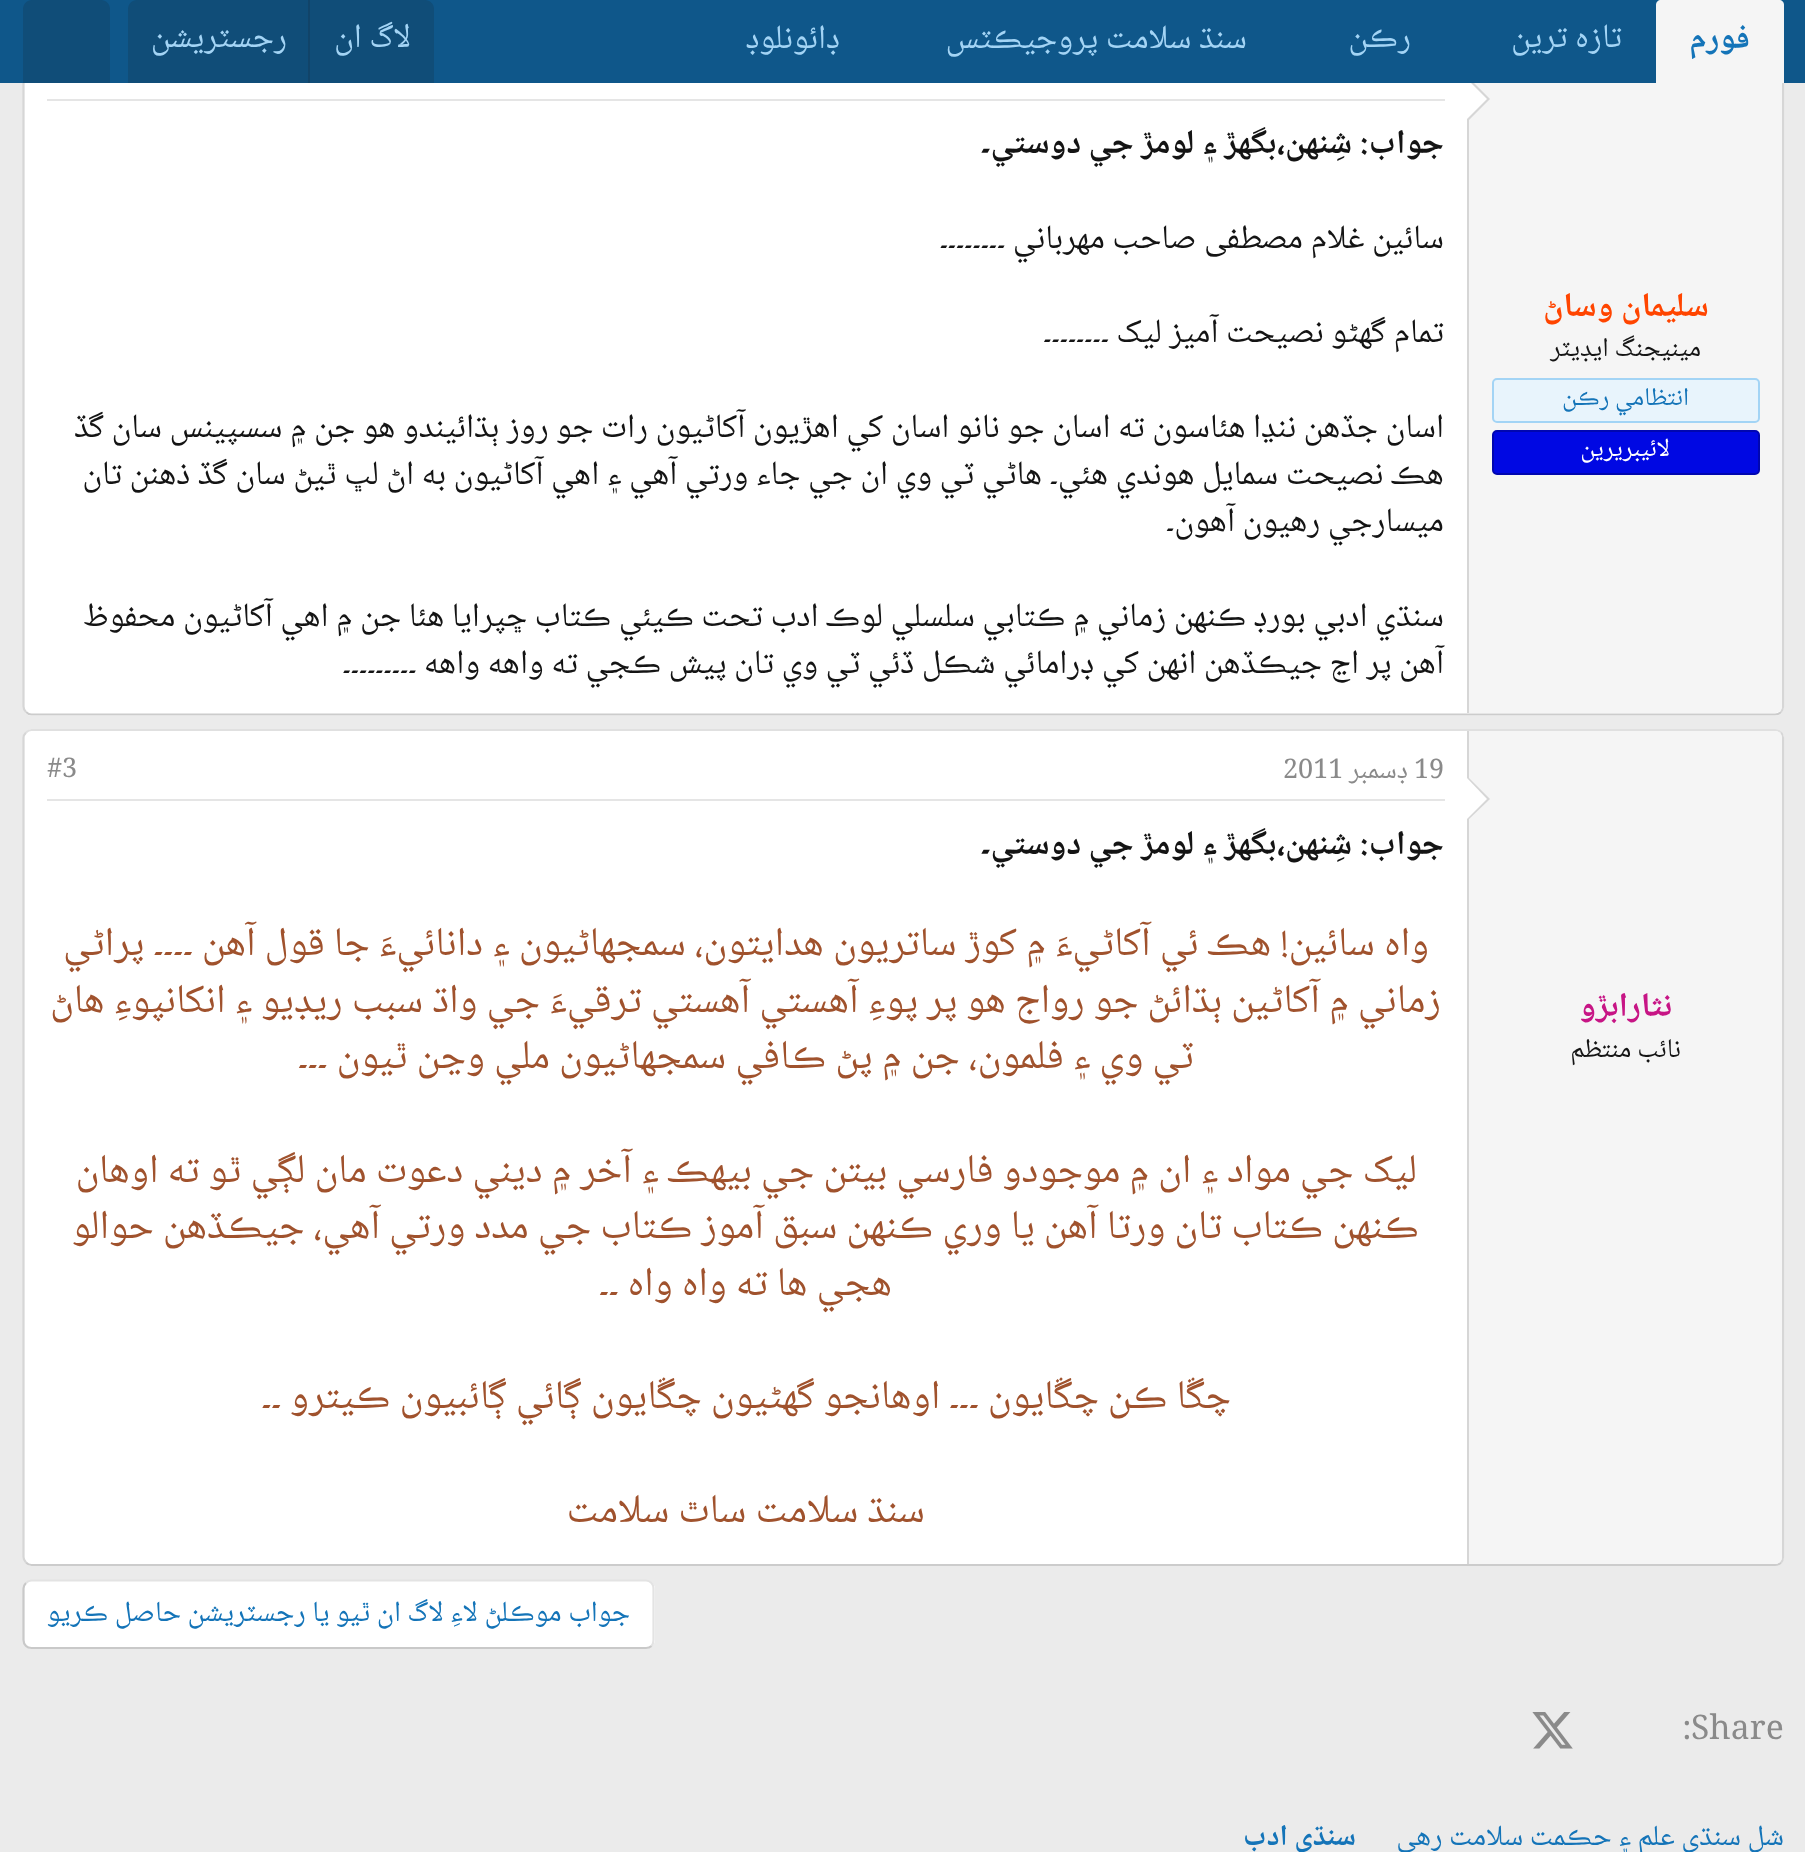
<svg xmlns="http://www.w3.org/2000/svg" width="1805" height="1852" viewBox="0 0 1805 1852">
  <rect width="100%" height="100%" fill="#ebebeb"/>
  <rect x="23" y="29" width="1761" height="687" rx="9" fill="#fff"/>
  <path d="M1781 32.5C1782.5 34 1783 36 1783 38V706.5C1783 708.5 1782.5 710.5 1781 712" fill="none" stroke="#d6d6d6" stroke-width="2.2"/>
  <path d="M1781 712C1779.5 713.5 1777.5 714.5 1775 714.5H31.5C29.5 714.5 27.5 713.5 26 712" fill="none" stroke="#ccc" stroke-width="2.2"/>
  <path d="M26 712C24.5 710.5 23.5 708.5 23.5 706.5V38C23.5 36 24.5 34 26 32.5" fill="none" stroke="#d6d6d6" stroke-width="2.2"/>
  <path d="M1467 32H1775C1779 32 1782 35 1782 39V706C1782 710 1779 713 1775 713H1467Z" fill="#f5f5f5"/>
  <path d="M1467 120h2v593H1467z" fill="#d6d6d6"/>
  <path d="M1467 122V76L1490 99Z" fill="#d6d6d6"/>
  <path d="M1467 119V79L1487 99Z" fill="#fff"/>
  <path d="M0 0h1805v83H0z" fill="#0f578a"/>
  <path d="M1661 0H1779C1782 0 1784 2 1784 5V83H1656V5C1656 2 1658 0 1661 0Z" fill="#f5f5f5"/>
  <path d="M137 0H425C430 0 434 4 434 9V83H128V9C128 4 132 0 137 0Z" fill="#104d78"/>
  <path d="M308 0h2v83H308z" fill="#114469"/>
  <path d="M32 0H101C106 0 110 4 110 9V83H23V9C23 4 27 0 32 0Z" fill="#104d78"/>
  <rect x="1493" y="379" width="266" height="43" rx="4" fill="#e8f4fc" stroke="#a3d4f5" stroke-width="2"/>
  <rect x="1493" y="431" width="266" height="43" rx="4" fill="#0008e3" stroke="#0006b0" stroke-width="2"/>
  <path d="M47 99h1398v2H47z" fill="#e5e5e5"/>
  <rect x="23" y="729" width="1761" height="837" rx="9" fill="#fff"/>
  <path d="M26 732.5C27.5 731 29.5 730 31.5 730H1775C1777.5 730 1779.5 731 1781 732.5" fill="none" stroke="#e0e0e0" stroke-width="2.2"/>
  <path d="M1781 732.5C1782.5 734 1783 736 1783 738V1557C1783 1559 1782.5 1561 1781 1562.5" fill="none" stroke="#d6d6d6" stroke-width="2.2"/>
  <path d="M1781 1562.5C1779.5 1564 1777.5 1565 1775 1565H31.5C29.5 1565 27.5 1564 26 1562.5" fill="none" stroke="#ccc" stroke-width="2.2"/>
  <path d="M26 1562.5C24.5 1561 23.5 1559 23.5 1557V738C23.5 736 24.5 734 26 732.5" fill="none" stroke="#d6d6d6" stroke-width="2.2"/>
  <path d="M1467 731H1775C1779 731 1782 734 1782 738V1557C1782 1561 1779 1564 1775 1564H1467Z" fill="#f5f5f5"/>
  <path d="M1467 731h2v833H1467z" fill="#d6d6d6"/>
  <path d="M1467 821V776L1490 799Z" fill="#d6d6d6"/>
  <path d="M1467 819V778L1487 799Z" fill="#fff"/>
  <path d="M47 799h1398v2H47z" fill="#e5e5e5"/>
  <rect x="23" y="1580" width="632" height="69" rx="9" fill="#fff"/>
  <path d="M26 1583C27.5 1581.5 29.5 1580.5 31.5 1580.5H646C648 1580.5 650 1581.5 651.5 1583C653 1584.5 653.5 1586.5 653.5 1588.5V1640C653.5 1642.5 653 1644.5 651.5 1646" fill="none" stroke="#e3e3e3" stroke-width="2.2"/>
  <path d="M651.5 1646C650 1647.5 648 1648 646 1648H31.5C29.5 1648 27.5 1647.5 26 1646C24.5 1644.5 23.5 1642.5 23.5 1640V1588.5C23.5 1586.5 24.5 1584.5 26 1583" fill="none" stroke="#c9c9c9" stroke-width="2.2"/>
  <image x="1532" y="1712" width="41" height="37" href="img/1.png"/>
  <text x="1750" y="48" font-family="Noto Naskh Arabic" font-size="33.75" font-weight="bold" direction="rtl" fill="#1474b8">فورم</text>
  <g font-family="Noto Naskh Arabic" font-size="33.75" direction="rtl" fill="#a3d4f5">
    <text x="1622" y="47">تازہ ترين</text>
    <text x="1411" y="47">رڪن</text>
    <text x="1247" y="48">سنڌ سلامت پروجيڪٽس</text>
    <text x="840" y="48">ڊائونلوڊ</text>
    <text x="411" y="47">لاگ ان</text>
    <text x="287" y="47">رجسٽريشن</text>
  </g>
  <text x="1709" y="316" font-family="Noto Naskh Arabic" font-size="33.75" font-weight="bold" direction="rtl" fill="#ff4500">سليمان وساڻ</text>
  <text x="1701" y="356" font-family="Noto Naskh Arabic" font-size="27" direction="rtl" fill="#141414">مينيجنگ ايڊيٽر</text>
  <text x="1689" y="405" font-family="Noto Naskh Arabic" font-size="25.5" direction="rtl" fill="#1474b8">انتظامي رڪن</text>
  <text x="1670" y="456" font-family="Noto Naskh Arabic" font-size="25.5" direction="rtl" fill="#fff">لائيبريرين</text>
  <text x="1444" y="153" font-family="Noto Naskh Arabic" font-size="33.75" font-weight="bold" direction="rtl" fill="#141414">جواب: شِنهن،بگهڙ ۽ لومڙ جي دوستي۔</text>
  <g font-family="Noto Naskh Arabic" font-size="33.75" direction="rtl" fill="#141414">
    <text x="1444" y="248">سائين غلام مصطفى صاحب مهرباني ۔۔۔۔۔۔۔۔</text>
    <text x="1444" y="342">تمام گهڻو نصيحت آميز ليک ۔۔۔۔۔۔۔۔</text>
    <text x="1444" y="437">اسان جڏهن ننڍا هئاسون ته اسان جو نانو اسان کي اهڙيون آکاڻيون رات جو روز ٻڌائيندو هو جن ۾ سسپينس سان گڏ</text>
    <text x="1444" y="484">هڪ نصيحت سمايل هوندي هئي۔ هاڻي ٽي وي ان جي جاء ورتي آهي ۽ اهي آکاڻيون به اڻ لڀ ٿيڻ سان گڏ ذهنن تان</text>
    <text x="1444" y="531">ميسارجي رهيون آهون۔</text>
    <text x="1444" y="626">سنڌي ادبي بورڊ ڪنهن زماني ۾ ڪتابي سلسلي لوڪ ادب تحت ڪيئي ڪتاب ڇپرايا هئا جن ۾ اهي آکاڻيون محفوظ</text>
    <text x="1444" y="673">آهن پر اڃ جيڪڏهن انهن کي ڊرامائي شڪل ڏئي ٽي وي تان پيش ڪجي ته واهه واهه ۔۔۔۔۔۔۔۔۔</text>
  </g>
  <text x="1672" y="1016" font-family="Noto Naskh Arabic" font-size="33.75" font-weight="bold" direction="rtl" fill="#c71585">نثارابڙو</text>
  <text x="1681" y="1057" font-family="Noto Naskh Arabic" font-size="27" direction="rtl" fill="#141414">نائب منتظم</text>
  <text x="1414" y="778" font-family="Noto Naskh Arabic" font-size="27" fill="#8a8a8a">19</text>
  <text x="1408" y="778" font-family="Noto Naskh Arabic" font-size="27" direction="rtl" fill="#8a8a8a">ڊسمبر</text>
  <g font-family="Noto Naskh Arabic" font-size="27" fill="#8a8a8a">
    <text x="1283" y="778">2011</text>
    <text x="47" y="777">#3</text>
  </g>
  <text x="1444" y="854" font-family="Noto Naskh Arabic" font-size="33.75" font-weight="bold" direction="rtl" fill="#141414">جواب: شِنهن،بگهڙ ۽ لومڙ جي دوستي۔</text>
  <g font-family="Noto Naskh Arabic" font-size="40.5" direction="rtl" fill="#a0522d">
    <text x="1429" y="955">واه سائين! هڪ ئي آکاڻيءَ ۾ کوڙ ساتريون هدايتون، سمجهاڻيون ۽ دانائيءَ جا قول آهن ۔۔۔۔ پراڻي</text>
    <text x="1441" y="1012">زماني ۾ آکاڻين ٻڌائڻ جو رواج هو پر پوءِ آهستي آهستي ترقيءَ جي واڌ سبب ريڊيو ۽ انکانپوءِ هاڻ</text>
    <text x="1194" y="1068">ٽي وي ۽ فلمون، جن ۾ پڻ ڪافي سمجهاڻيون ملي وڃن ٿيون ۔۔۔</text>
    <text x="1417" y="1182">ليک جي مواد ۽ ان ۾ موجودو فارسي بيتن جي بيهڪ ۽ آخر ۾ ديني دعوت مان لڳي ٿو ته اوهان</text>
    <text x="1419" y="1238">ڪنهن ڪتاب تان ورتا آهن يا وري ڪنهن سبق آموز ڪتاب جي مدد ورتي آهي، جيڪڏهن حوالو</text>
    <text x="892" y="1295">هجي ها ته واه واه ۔۔</text>
    <text x="1231" y="1408">چڱا ڪن چڱايون ۔۔۔ اوهانجو گهڻيون چڱايون ڳائي ڳائبيون ڪيترو ۔۔</text>
    <text x="925" y="1522">سنڌ سلامت ساٿ سلامت</text>
  </g>
  <text x="630" y="1621" font-family="Noto Naskh Arabic" font-size="29.25" direction="rtl" fill="#1474b8">جواب موڪلڻ لاءِ لاگ ان ٿيو يا رجسٽريشن حاصل ڪريو</text>
  <g font-family="Noto Naskh Arabic" font-size="33.75" fill="#8a8a8a">
    <text x="1691" y="1739">Share</text>
    <text x="1682" y="1739">:</text>
  </g>
  <text x="1784" y="1845" font-family="Noto Naskh Arabic" font-size="29.25" direction="rtl" fill="#1474b8">شل سنڌي علم ۽ حڪمت سلامت رهي</text>
  <text x="1356" y="1845" font-family="Noto Naskh Arabic" font-size="29.25" font-weight="bold" direction="rtl" fill="#1474b8">سنڌي ادب</text>
</svg>
